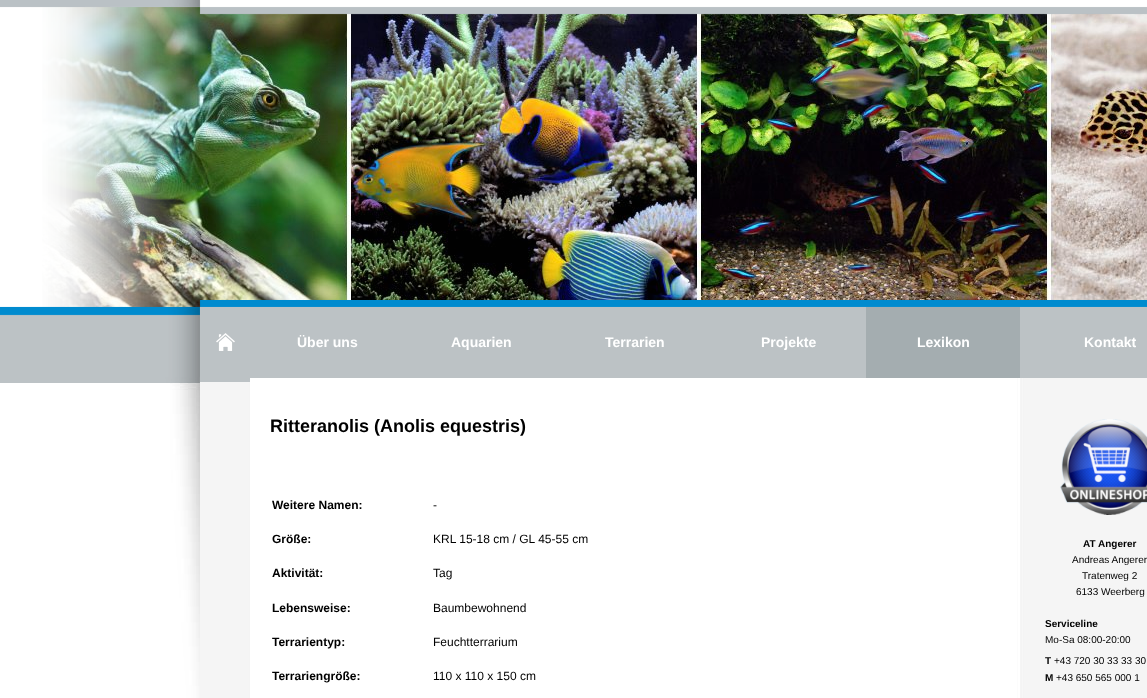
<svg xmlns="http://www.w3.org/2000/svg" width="1147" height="698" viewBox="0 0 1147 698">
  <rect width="100%" height="100%" fill="#fff"/>
  <image x="0" y="6" width="1147" height="692" href="img/1.png"/>
  <image x="42" y="7" width="1105" height="300" href="img/3.png"/>
  <image x="0" y="0" width="1147" height="383" href="img/2.png"/>
  <path d="M200 307h50v75H200z" fill="#bcc2c5"/>
  <image x="216" y="333" width="19" height="18" href="img/4.png"/>
  <path d="M250 376h616v2H250z" fill="#bcc2c5"/>
  <path d="M866 307h154v71H866z" fill="#a4adb0"/>
  <path d="M1020 376h127v2H1020z" fill="#bcc2c5"/>
  <image x="170" y="383" width="30" height="315" href="img/5.png"/>
  <image x="1060" y="419" width="87" height="96" href="img/6.png"/>
  <g font-family="Liberation Sans" font-size="14" font-weight="bold" fill="#fff">
    <text x="297" y="347">Über uns</text>
    <text x="451" y="347">Aquarien</text>
    <text x="605" y="347">Terrarien</text>
    <text x="761" y="347">Projekte</text>
    <text x="917" y="347">Lexikon</text>
    <text x="1084" y="347">Kontakt</text>
  </g>
  <text x="270" y="432" font-family="Liberation Sans" font-size="18" font-weight="bold" fill="#000">Ritteranolis (Anolis equestris)</text>
  <text x="272" y="509" font-family="Liberation Sans" font-size="12" font-weight="bold" fill="#000">Weitere Namen:</text>
  <text x="433" y="509" font-family="Liberation Sans" font-size="12" fill="#000">-</text>
  <text x="272" y="543" font-family="Liberation Sans" font-size="12" font-weight="bold" fill="#000">Größe:</text>
  <text x="433" y="543" font-family="Liberation Sans" font-size="12" fill="#000">KRL 15-18 cm / GL 45-55 cm</text>
  <text x="272" y="577" font-family="Liberation Sans" font-size="12" font-weight="bold" fill="#000">Aktivität:</text>
  <text x="433" y="577" font-family="Liberation Sans" font-size="12" fill="#000">Tag</text>
  <text x="272" y="612" font-family="Liberation Sans" font-size="12" font-weight="bold" fill="#000">Lebensweise:</text>
  <text x="433" y="612" font-family="Liberation Sans" font-size="12" fill="#000">Baumbewohnend</text>
  <text x="272" y="646" font-family="Liberation Sans" font-size="12" font-weight="bold" fill="#000">Terrarientyp:</text>
  <text x="433" y="646" font-family="Liberation Sans" font-size="12" fill="#000">Feuchtterrarium</text>
  <text x="272" y="680" font-family="Liberation Sans" font-size="12" font-weight="bold" fill="#000">Terrariengröße:</text>
  <text x="433" y="680" font-family="Liberation Sans" font-size="12" fill="#000">110 x 110 x 150 cm</text>
  <text x="1083" y="547" font-family="Liberation Sans" font-size="10" font-weight="bold" fill="#000">AT Angerer</text>
  <g font-family="Liberation Sans" font-size="10" fill="#000">
    <text x="1072" y="563">Andreas Angerer</text>
    <text x="1082" y="579">Tratenweg 2</text>
    <text x="1076" y="595">6133 Weerberg</text>
  </g>
  <text x="1045" y="627" font-family="Liberation Sans" font-size="10" font-weight="bold" fill="#000">Serviceline</text>
  <text x="1045" y="643" font-family="Liberation Sans" font-size="10" fill="#000">Mo-Sa 08:00-20:00</text>
  <text x="1045" y="664" font-family="Liberation Sans" font-size="10" font-weight="bold" fill="#000">T</text>
  <text x="1054" y="664" font-family="Liberation Sans" font-size="10" fill="#000">+43 720 30 33 33 30</text>
  <text x="1045" y="681" font-family="Liberation Sans" font-size="10" font-weight="bold" fill="#000">M</text>
  <text x="1056" y="681" font-family="Liberation Sans" font-size="10" fill="#000">+43 650 565 000 1</text>
</svg>
